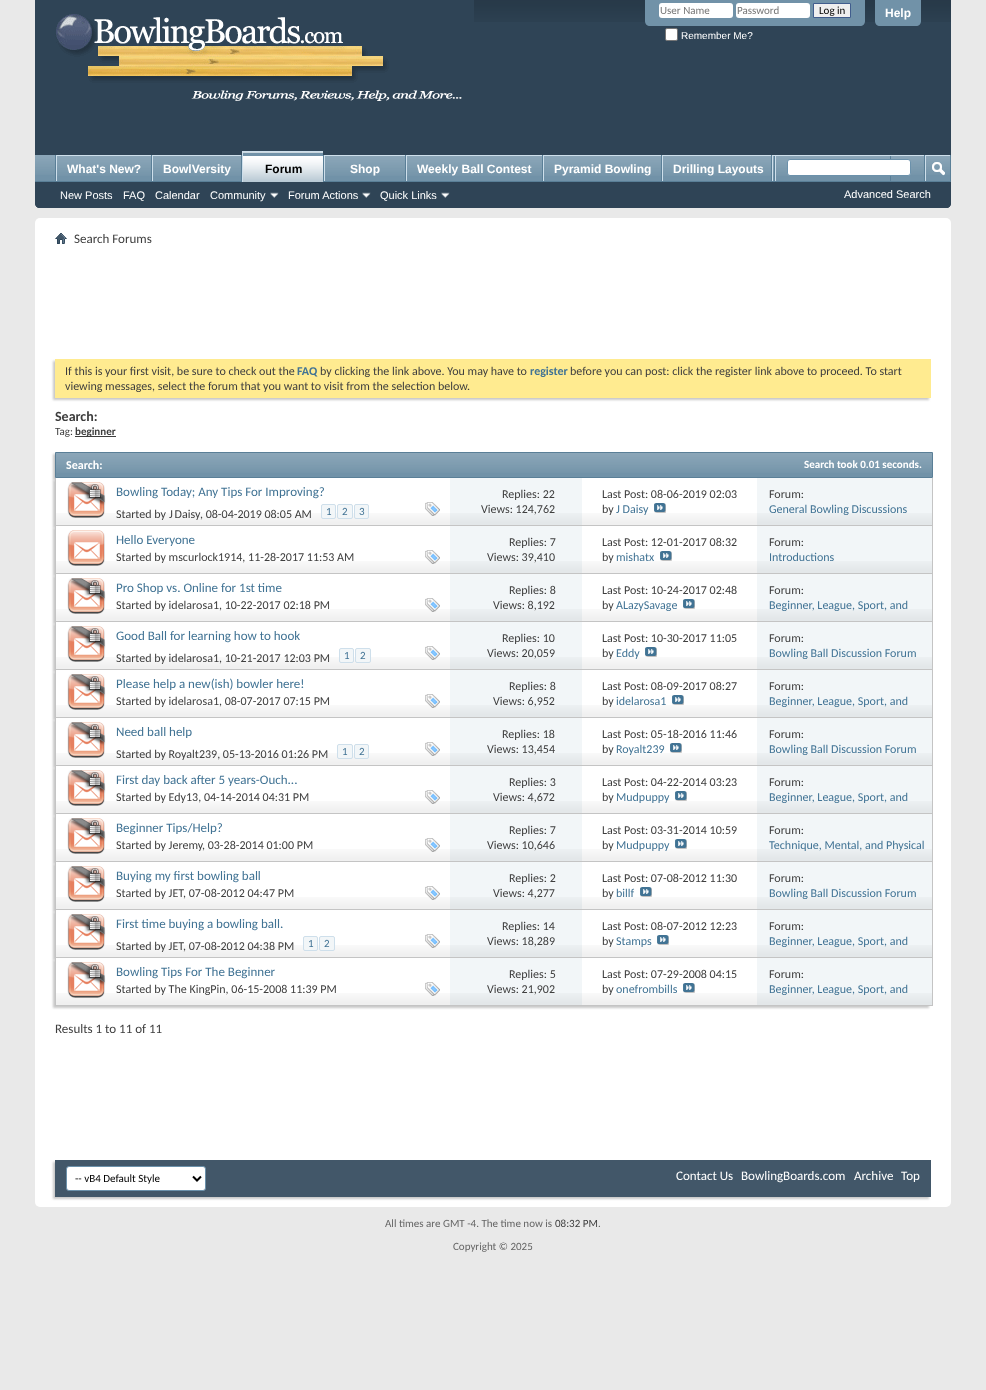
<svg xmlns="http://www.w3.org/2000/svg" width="986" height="1390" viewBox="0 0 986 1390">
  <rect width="100%" height="100%" fill="#e9e9e9"/>
  <path d="M35 0H951V203C951 206 949 208 946 208H40C37 208 35 206 35 203Z" fill="#2f4456"/>
  <image x="474" y="0" width="477" height="22" href="img/1.png"/>
  <image x="35" y="0" width="439" height="101" href="img/2.png"/>
  <path d="M645 0H865V21C865 24 863 26 860 26H650C647 26 645 24 645 21Z" fill="#7192a8"/>
  <rect x="659" y="3" width="74" height="15" rx="3" fill="#fff"/>
  <rect x="736" y="3" width="74" height="15" rx="3" fill="#fff"/>
  <path d="M813.5 3.5h37v14H813.5z" fill="#efefef" stroke="#415d8d"/>
  <rect x="665.5" y="28.5" width="12" height="12" rx="1.5" fill="#fff" stroke="#767676"/>
  <path d="M875 0H921V21C921 24 919 26 916 26H880C877 26 875 24 875 21Z" fill="#7192a8"/>
  <path d="M35 155H951V203C951 206 949 208 946 208H40C37 208 35 206 35 203Z" fill="#2f4456"/>
  <path d="M35 155h915v26H35z" fill="#7192a8"/>
  <image x="35" y="155" width="915" height="20" href="img/3.png"/>
  <path d="M151 155h1v27H151z" fill="#5a7f97"/>
  <path d="M55 155h1v27H55z" fill="#5a7f97"/>
  <path d="M57 156h94v19H57z" fill="#7192a8"/>
  <image x="57" y="156" width="94" height="20" href="img/4.png"/>
  <path d="M56 155h95v1H56z" fill="#cedfeb"/>
  <path d="M56 155h1v27H56z" fill="#cedfeb"/>
  <path d="M241 155h1v27H241z" fill="#5a7f97"/>
  <path d="M153 156h88v19H153z" fill="#7192a8"/>
  <image x="153" y="156" width="88" height="20" href="img/5.png"/>
  <path d="M152 155h89v1H152z" fill="#cedfeb"/>
  <path d="M152 155h1v27H152z" fill="#cedfeb"/>
  <path d="M323 155h1v26H323z" fill="#5a7f97"/>
  <path d="M405 155h1v27H405z" fill="#5a7f97"/>
  <path d="M324 155h81v1H324z" fill="#cedfeb"/>
  <path d="M324 155h1v27H324z" fill="#cedfeb"/>
  <path d="M542 155h1v27H542z" fill="#5a7f97"/>
  <path d="M406 155h136v1H406z" fill="#cedfeb"/>
  <path d="M406 155h1v27H406z" fill="#cedfeb"/>
  <path d="M661 155h1v27H661z" fill="#5a7f97"/>
  <path d="M543 155h118v1H543z" fill="#cedfeb"/>
  <path d="M543 155h1v27H543z" fill="#cedfeb"/>
  <path d="M774 155h1v27H774z" fill="#5a7f97"/>
  <path d="M662 155h112v1H662z" fill="#cedfeb"/>
  <path d="M662 155h1v27H662z" fill="#cedfeb"/>
  <path d="M890 155h1v27H890z" fill="#5a7f97"/>
  <path d="M775 155h1v27H775z" fill="#cedfeb"/>
  <path d="M35 181h916v1H35z" fill="#5a7f97"/>
  <path d="M243 152h80v30H243z" fill="#7192a8"/>
  <image x="243" y="152" width="80" height="30" href="img/6.png"/>
  <path d="M242 151h81v1H242z" fill="#cedfeb"/>
  <path d="M242 151h1v31H242z" fill="#cedfeb"/>
  <path d="M325 156h80v19H325z" fill="#7192a8"/>
  <image x="325" y="156" width="80" height="20" href="img/7.png"/>
  <path d="M407 156h135v19H407z" fill="#7192a8"/>
  <image x="407" y="156" width="135" height="20" href="img/8.png"/>
  <path d="M544 156h117v19H544z" fill="#7192a8"/>
  <image x="544" y="156" width="117" height="20" href="img/9.png"/>
  <path d="M663 156h111v19H663z" fill="#7192a8"/>
  <image x="663" y="156" width="111" height="20" href="img/10.png"/>
  <path d="M776 156h114v19H776z" fill="#7192a8"/>
  <image x="776" y="156" width="114" height="20" href="img/11.png"/>
  <image x="270" y="192" width="9" height="6" href="img/12.png"/>
  <image x="362" y="192" width="9" height="6" href="img/12.png"/>
  <image x="441" y="192" width="9" height="6" href="img/12.png"/>
  <path d="M771 155h1v26H771z" fill="#5a7f97"/>
  <path d="M772 155h152v1H772z" fill="#cedfeb"/>
  <path d="M772 155h1v26H772z" fill="#cedfeb"/>
  <rect x="787.5" y="159.5" width="123" height="16" rx="2.5" fill="#fff" stroke="#6b91ab"/>
  <path d="M950 155h1v26H950z" fill="#5a7f97"/>
  <path d="M924 155h1v26H924z" fill="#5a7f97"/>
  <path d="M925 155h25v1H925z" fill="#cedfeb"/>
  <path d="M925 155h1v26H925z" fill="#cedfeb"/>
  <image x="932" y="162" width="13" height="14" href="img/13.png"/>
  <rect x="35" y="218" width="916" height="989" rx="5" fill="#fff"/>
  <image x="55" y="233" width="12" height="11" href="img/14.png"/>
  <path d="M53 361h876v39H53z" fill="#c8c8c8" filter="blur(1px)"/>
  <path d="M55 359h876v39H55z" fill="#ffeb90"/>
  <path d="M75 436h41v1H75z" fill="#3e3e3e"/>
  <path d="M53 454h878v26H53z" fill="#c8c8c8" filter="blur(1px)"/>
  <path d="M56 453h876v24H56z" fill="#7192a8"/>
  <image x="56" y="453" width="876" height="20" href="img/15.png"/>
  <path d="M55.5 452.5h877v25H55.5z" fill="none" stroke="#5a7f97"/>
  <path d="M53 480h876v48H53z" fill="#c8c8c8" filter="blur(1px)"/>
  <path d="M56 478h701v47H56z" fill="#fff"/>
  <image x="56" y="513" width="701" height="12" href="img/16.png"/>
  <path d="M932 478h1v48H932z" fill="#c4c4c4"/>
  <path d="M55 525h878v1H55z" fill="#c4c4c4"/>
  <path d="M55 478h1v48H55z" fill="#c4c4c4"/>
  <image x="67" y="482" width="39" height="36" href="img/17.png"/>
  <rect x="321.5" y="504.5" width="14" height="14" rx="1.5" fill="#f2f6f8" stroke="#cedfeb"/>
  <rect x="337.5" y="504.5" width="15" height="14" rx="1.5" fill="#f2f6f8" stroke="#cedfeb"/>
  <rect x="354.5" y="504.5" width="14" height="14" rx="1.5" fill="#f2f6f8" stroke="#cedfeb"/>
  <image x="425" y="502" width="15" height="14" href="img/18.png"/>
  <path d="M450 478h132v47H450z" fill="#f2f6f8"/>
  <image x="450" y="513" width="132" height="12" href="img/19.png"/>
  <image x="654" y="503" width="12" height="10" href="img/20.png"/>
  <path d="M757 478h175v47H757z" fill="#f2f6f8"/>
  <image x="757" y="513" width="175" height="12" href="img/21.png"/>
  <path d="M53 528h876v48H53z" fill="#c8c8c8" filter="blur(1px)"/>
  <path d="M56 526h701v47H56z" fill="#fff"/>
  <image x="56" y="561" width="701" height="12" href="img/16.png"/>
  <path d="M932 526h1v48H932z" fill="#c4c4c4"/>
  <path d="M55 573h878v1H55z" fill="#c4c4c4"/>
  <path d="M55 526h1v48H55z" fill="#c4c4c4"/>
  <image x="67" y="530" width="38" height="36" href="img/22.png"/>
  <image x="425" y="550" width="15" height="14" href="img/18.png"/>
  <path d="M450 526h132v47H450z" fill="#f2f6f8"/>
  <image x="450" y="561" width="132" height="12" href="img/19.png"/>
  <image x="660" y="551" width="12" height="10" href="img/20.png"/>
  <path d="M757 526h175v47H757z" fill="#f2f6f8"/>
  <image x="757" y="561" width="175" height="12" href="img/21.png"/>
  <path d="M53 576h876v48H53z" fill="#c8c8c8" filter="blur(1px)"/>
  <path d="M56 574h701v47H56z" fill="#fff"/>
  <image x="56" y="609" width="701" height="12" href="img/16.png"/>
  <path d="M932 574h1v48H932z" fill="#c4c4c4"/>
  <path d="M55 621h878v1H55z" fill="#c4c4c4"/>
  <path d="M55 574h1v48H55z" fill="#c4c4c4"/>
  <image x="67" y="578" width="39" height="36" href="img/17.png"/>
  <image x="425" y="598" width="15" height="14" href="img/18.png"/>
  <path d="M450 574h132v47H450z" fill="#f2f6f8"/>
  <image x="450" y="609" width="132" height="12" href="img/19.png"/>
  <image x="683" y="599" width="12" height="10" href="img/20.png"/>
  <path d="M757 574h175v47H757z" fill="#f2f6f8"/>
  <image x="757" y="609" width="175" height="12" href="img/21.png"/>
  <path d="M53 624h876v48H53z" fill="#c8c8c8" filter="blur(1px)"/>
  <path d="M56 622h701v47H56z" fill="#fff"/>
  <image x="56" y="657" width="701" height="12" href="img/16.png"/>
  <path d="M932 622h1v48H932z" fill="#c4c4c4"/>
  <path d="M55 669h878v1H55z" fill="#c4c4c4"/>
  <path d="M55 622h1v48H55z" fill="#c4c4c4"/>
  <image x="67" y="626" width="39" height="36" href="img/17.png"/>
  <rect x="339.5" y="648.5" width="14" height="14" rx="1.5" fill="#f2f6f8" stroke="#cedfeb"/>
  <rect x="355.5" y="648.5" width="15" height="14" rx="1.5" fill="#f2f6f8" stroke="#cedfeb"/>
  <image x="425" y="646" width="15" height="14" href="img/18.png"/>
  <path d="M450 622h132v47H450z" fill="#f2f6f8"/>
  <image x="450" y="657" width="132" height="12" href="img/19.png"/>
  <image x="645" y="647" width="12" height="10" href="img/20.png"/>
  <path d="M757 622h175v47H757z" fill="#f2f6f8"/>
  <image x="757" y="657" width="175" height="12" href="img/21.png"/>
  <path d="M53 672h876v48H53z" fill="#c8c8c8" filter="blur(1px)"/>
  <path d="M56 670h701v47H56z" fill="#fff"/>
  <image x="56" y="705" width="701" height="12" href="img/16.png"/>
  <path d="M932 670h1v48H932z" fill="#c4c4c4"/>
  <path d="M55 717h878v1H55z" fill="#c4c4c4"/>
  <path d="M55 670h1v48H55z" fill="#c4c4c4"/>
  <image x="67" y="674" width="39" height="36" href="img/17.png"/>
  <image x="425" y="694" width="15" height="14" href="img/18.png"/>
  <path d="M450 670h132v47H450z" fill="#f2f6f8"/>
  <image x="450" y="705" width="132" height="12" href="img/19.png"/>
  <image x="672" y="695" width="12" height="10" href="img/20.png"/>
  <path d="M757 670h175v47H757z" fill="#f2f6f8"/>
  <image x="757" y="705" width="175" height="12" href="img/21.png"/>
  <path d="M53 720h876v48H53z" fill="#c8c8c8" filter="blur(1px)"/>
  <path d="M56 718h701v47H56z" fill="#fff"/>
  <image x="56" y="753" width="701" height="12" href="img/16.png"/>
  <path d="M932 718h1v48H932z" fill="#c4c4c4"/>
  <path d="M55 765h878v1H55z" fill="#c4c4c4"/>
  <path d="M55 718h1v48H55z" fill="#c4c4c4"/>
  <image x="67" y="722" width="39" height="36" href="img/17.png"/>
  <rect x="337.5" y="744.5" width="15" height="14" rx="1.5" fill="#f2f6f8" stroke="#cedfeb"/>
  <rect x="354.5" y="744.5" width="14" height="14" rx="1.5" fill="#f2f6f8" stroke="#cedfeb"/>
  <image x="425" y="742" width="15" height="14" href="img/18.png"/>
  <path d="M450 718h132v47H450z" fill="#f2f6f8"/>
  <image x="450" y="753" width="132" height="12" href="img/19.png"/>
  <image x="670" y="743" width="12" height="10" href="img/20.png"/>
  <path d="M757 718h175v47H757z" fill="#f2f6f8"/>
  <image x="757" y="753" width="175" height="12" href="img/21.png"/>
  <path d="M53 768h876v48H53z" fill="#c8c8c8" filter="blur(1px)"/>
  <path d="M56 766h701v47H56z" fill="#fff"/>
  <image x="56" y="801" width="701" height="12" href="img/16.png"/>
  <path d="M932 766h1v48H932z" fill="#c4c4c4"/>
  <path d="M55 813h878v1H55z" fill="#c4c4c4"/>
  <path d="M55 766h1v48H55z" fill="#c4c4c4"/>
  <image x="67" y="770" width="39" height="36" href="img/17.png"/>
  <image x="425" y="790" width="15" height="14" href="img/18.png"/>
  <path d="M450 766h132v47H450z" fill="#f2f6f8"/>
  <image x="450" y="801" width="132" height="12" href="img/19.png"/>
  <image x="675" y="791" width="12" height="10" href="img/20.png"/>
  <path d="M757 766h175v47H757z" fill="#f2f6f8"/>
  <image x="757" y="801" width="175" height="12" href="img/21.png"/>
  <path d="M53 816h876v48H53z" fill="#c8c8c8" filter="blur(1px)"/>
  <path d="M56 814h701v47H56z" fill="#fff"/>
  <image x="56" y="849" width="701" height="12" href="img/16.png"/>
  <path d="M932 814h1v48H932z" fill="#c4c4c4"/>
  <path d="M55 861h878v1H55z" fill="#c4c4c4"/>
  <path d="M55 814h1v48H55z" fill="#c4c4c4"/>
  <image x="67" y="818" width="39" height="36" href="img/17.png"/>
  <image x="425" y="838" width="15" height="14" href="img/18.png"/>
  <path d="M450 814h132v47H450z" fill="#f2f6f8"/>
  <image x="450" y="849" width="132" height="12" href="img/19.png"/>
  <image x="675" y="839" width="12" height="10" href="img/20.png"/>
  <path d="M757 814h175v47H757z" fill="#f2f6f8"/>
  <image x="757" y="849" width="175" height="12" href="img/21.png"/>
  <path d="M53 864h876v48H53z" fill="#c8c8c8" filter="blur(1px)"/>
  <path d="M56 862h701v47H56z" fill="#fff"/>
  <image x="56" y="897" width="701" height="12" href="img/16.png"/>
  <path d="M932 862h1v48H932z" fill="#c4c4c4"/>
  <path d="M55 909h878v1H55z" fill="#c4c4c4"/>
  <path d="M55 862h1v48H55z" fill="#c4c4c4"/>
  <image x="67" y="866" width="39" height="36" href="img/17.png"/>
  <image x="425" y="886" width="15" height="14" href="img/18.png"/>
  <path d="M450 862h132v47H450z" fill="#f2f6f8"/>
  <image x="450" y="897" width="132" height="12" href="img/19.png"/>
  <image x="640" y="887" width="12" height="10" href="img/20.png"/>
  <path d="M757 862h175v47H757z" fill="#f2f6f8"/>
  <image x="757" y="897" width="175" height="12" href="img/21.png"/>
  <path d="M53 912h876v48H53z" fill="#c8c8c8" filter="blur(1px)"/>
  <path d="M56 910h701v47H56z" fill="#fff"/>
  <image x="56" y="945" width="701" height="12" href="img/16.png"/>
  <path d="M932 910h1v48H932z" fill="#c4c4c4"/>
  <path d="M55 957h878v1H55z" fill="#c4c4c4"/>
  <path d="M55 910h1v48H55z" fill="#c4c4c4"/>
  <image x="67" y="914" width="39" height="36" href="img/17.png"/>
  <rect x="303.5" y="936.5" width="14" height="14" rx="1.5" fill="#f2f6f8" stroke="#cedfeb"/>
  <rect x="319.5" y="936.5" width="15" height="14" rx="1.5" fill="#f2f6f8" stroke="#cedfeb"/>
  <image x="425" y="934" width="15" height="14" href="img/18.png"/>
  <path d="M450 910h132v47H450z" fill="#f2f6f8"/>
  <image x="450" y="945" width="132" height="12" href="img/19.png"/>
  <image x="657" y="935" width="12" height="10" href="img/20.png"/>
  <path d="M757 910h175v47H757z" fill="#f2f6f8"/>
  <image x="757" y="945" width="175" height="12" href="img/21.png"/>
  <path d="M53 960h876v48H53z" fill="#c8c8c8" filter="blur(1px)"/>
  <path d="M56 958h701v47H56z" fill="#fff"/>
  <image x="56" y="993" width="701" height="12" href="img/16.png"/>
  <path d="M932 958h1v48H932z" fill="#c4c4c4"/>
  <path d="M55 1005h878v1H55z" fill="#c4c4c4"/>
  <path d="M55 958h1v48H55z" fill="#c4c4c4"/>
  <image x="67" y="962" width="39" height="36" href="img/17.png"/>
  <image x="425" y="982" width="15" height="14" href="img/18.png"/>
  <path d="M450 958h132v47H450z" fill="#f2f6f8"/>
  <image x="450" y="993" width="132" height="12" href="img/19.png"/>
  <image x="683" y="983" width="12" height="10" href="img/20.png"/>
  <path d="M757 958h175v47H757z" fill="#f2f6f8"/>
  <image x="757" y="993" width="175" height="12" href="img/21.png"/>
  <path d="M53 1162h876v37H53z" fill="#c8c8c8" filter="blur(1px)"/>
  <path d="M55 1160h876v37H55z" fill="#425769"/>
  <rect x="66.5" y="1166.5" width="139" height="24" rx="2.5" fill="#fff" stroke="#6b91ab"/>
  <path d="M193 1176.5L197 1180.5L201 1176.5" fill="none" stroke="#000" stroke-width="2"/>
  <g font-family="Carlito" font-size="11" fill="#777">
    <text x="660" y="14">User Name</text>
    <text x="737" y="14">Password</text>
  </g>
  <text x="819" y="14" font-family="Carlito" font-size="11" fill="#000">Log in</text>
  <text x="681" y="39" font-family="Liberation Sans" font-size="10" fill="#fff">Remember Me?</text>
  <g font-family="Liberation Sans" font-size="12" font-weight="bold" fill="#fff">
    <text x="885" y="17">Help</text>
    <text x="67" y="173">What's New?</text>
    <text x="163" y="173">BowlVersity</text>
  </g>
  <text x="265" y="173" font-family="Liberation Sans" font-size="12" font-weight="bold" fill="#000">Forum</text>
  <g font-family="Liberation Sans" font-size="12" font-weight="bold" fill="#fff">
    <text x="350" y="173">Shop</text>
    <text x="417" y="173">Weekly Ball Contest</text>
    <text x="554" y="173">Pyramid Bowling</text>
    <text x="673" y="173">Drilling Layouts</text>
  </g>
  <g font-family="Liberation Sans" font-size="11" fill="#fff">
    <text x="60" y="199">New Posts</text>
    <text x="123" y="199">FAQ</text>
    <text x="155" y="199">Calendar</text>
    <text x="210" y="199">Community</text>
    <text x="288" y="199">Forum Actions</text>
    <text x="380" y="199">Quick Links</text>
    <text x="844" y="198">Advanced Search</text>
  </g>
  <text x="74" y="243" font-family="Carlito" font-size="13" fill="#3e3e3e">Search Forums</text>
  <text x="65" y="375" font-family="Carlito" font-size="12" fill="#3e3e3e">If this is your first visit, be sure to check out the</text>
  <text x="297" y="375" font-family="Carlito" font-size="12" font-weight="bold" fill="#417394">FAQ</text>
  <text x="320" y="375" font-family="Carlito" font-size="12" fill="#3e3e3e">by clicking the link above. You may have to</text>
  <text x="530" y="375" font-family="Carlito" font-size="12" font-weight="bold" fill="#417394">register</text>
  <g font-family="Carlito" font-size="12" fill="#3e3e3e">
    <text x="570" y="375">before you can post: click the register link above to proceed. To start</text>
    <text x="65" y="390">viewing messages, select the forum that you want to visit from the selection below.</text>
  </g>
  <text x="55" y="421" font-family="Carlito" font-size="14" font-weight="bold" fill="#3e3e3e">Search:</text>
  <text x="55" y="435" font-family="Carlito" font-size="11" fill="#3e3e3e">Tag:</text>
  <text x="75" y="435" font-family="Carlito" font-size="11" font-weight="bold" fill="#3e3e3e">beginner</text>
  <text x="66" y="469" font-family="Carlito" font-size="12" font-weight="bold" fill="#fff">Search:</text>
  <text x="804" y="468" font-family="Carlito" font-size="11" font-weight="bold" fill="#fff">Search took 0.01 seconds.</text>
  <text x="116" y="496" font-family="Carlito" font-size="13" fill="#417394">Bowling Today; Any Tips For Improving?</text>
  <g font-family="Carlito" font-size="12" fill="#3e3e3e">
    <text x="116" y="518">Started by</text>
    <text x="169" y="518" word-spacing="-1">J Daisy</text>
    <text x="200" y="518">, 08-04-2019 08:05 AM</text>
  </g>
  <g font-family="Carlito" font-size="11" fill="#417394">
    <text x="326" y="515">1</text>
    <text x="342" y="515">2</text>
    <text x="359" y="515">3</text>
  </g>
  <g font-family="Carlito" font-size="12" fill="#3e3e3e">
    <text x="502" y="498">Replies: 22</text>
    <text x="481" y="513">Views: 124,762</text>
    <text x="602" y="498">Last Post: 08-06-2019 02:03</text>
    <text x="602" y="513">by</text>
  </g>
  <text x="616" y="513" font-family="Carlito" font-size="12" fill="#417394">J Daisy</text>
  <text x="769" y="498" font-family="Carlito" font-size="12" fill="#3e3e3e">Forum:</text>
  <text x="769" y="513" font-family="Carlito" font-size="12" fill="#417394">General Bowling Discussions</text>
  <text x="116" y="544" font-family="Carlito" font-size="13" fill="#417394">Hello Everyone</text>
  <g font-family="Carlito" font-size="12" fill="#3e3e3e">
    <text x="116" y="561">Started by mscurlock1914, 11-28-2017 11:53 AM</text>
    <text x="509" y="546">Replies: 7</text>
    <text x="487" y="561">Views: 39,410</text>
    <text x="602" y="546">Last Post: 12-01-2017 08:32</text>
    <text x="602" y="561">by</text>
  </g>
  <text x="616" y="561" font-family="Carlito" font-size="12" fill="#417394">mishatx</text>
  <text x="769" y="546" font-family="Carlito" font-size="12" fill="#3e3e3e">Forum:</text>
  <text x="769" y="561" font-family="Carlito" font-size="12" fill="#417394">Introductions</text>
  <text x="116" y="592" font-family="Carlito" font-size="13" fill="#417394">Pro Shop vs. Online for 1st time</text>
  <g font-family="Carlito" font-size="12" fill="#3e3e3e">
    <text x="116" y="609">Started by idelarosa1, 10-22-2017 02:18 PM</text>
    <text x="509" y="594">Replies: 8</text>
    <text x="493" y="609">Views: 8,192</text>
    <text x="602" y="594">Last Post: 10-24-2017 02:48</text>
    <text x="602" y="609">by</text>
  </g>
  <text x="616" y="609" font-family="Carlito" font-size="12" fill="#417394">ALazySavage</text>
  <text x="769" y="594" font-family="Carlito" font-size="12" fill="#3e3e3e">Forum:</text>
  <text x="769" y="609" font-family="Carlito" font-size="12" fill="#417394">Beginner, League, Sport, and</text>
  <text x="116" y="640" font-family="Carlito" font-size="13" fill="#417394">Good Ball for learning how to hook</text>
  <text x="116" y="662" font-family="Carlito" font-size="12" fill="#3e3e3e">Started by idelarosa1, 10-21-2017 12:03 PM</text>
  <g font-family="Carlito" font-size="11" fill="#417394">
    <text x="344" y="659">1</text>
    <text x="360" y="659">2</text>
  </g>
  <g font-family="Carlito" font-size="12" fill="#3e3e3e">
    <text x="502" y="642">Replies: 10</text>
    <text x="487" y="657">Views: 20,059</text>
    <text x="602" y="642">Last Post: 10-30-2017 11:05</text>
    <text x="602" y="657">by</text>
  </g>
  <text x="616" y="657" font-family="Carlito" font-size="12" fill="#417394">Eddy</text>
  <text x="769" y="642" font-family="Carlito" font-size="12" fill="#3e3e3e">Forum:</text>
  <text x="769" y="657" font-family="Carlito" font-size="12" fill="#417394">Bowling Ball Discussion Forum</text>
  <text x="116" y="688" font-family="Carlito" font-size="13" fill="#417394">Please help a new(ish) bowler here!</text>
  <g font-family="Carlito" font-size="12" fill="#3e3e3e">
    <text x="116" y="705">Started by idelarosa1, 08-07-2017 07:15 PM</text>
    <text x="509" y="690">Replies: 8</text>
    <text x="493" y="705">Views: 6,952</text>
    <text x="602" y="690">Last Post: 08-09-2017 08:27</text>
    <text x="602" y="705">by</text>
  </g>
  <text x="616" y="705" font-family="Carlito" font-size="12" fill="#417394">idelarosa1</text>
  <text x="769" y="690" font-family="Carlito" font-size="12" fill="#3e3e3e">Forum:</text>
  <text x="769" y="705" font-family="Carlito" font-size="12" fill="#417394">Beginner, League, Sport, and</text>
  <text x="116" y="736" font-family="Carlito" font-size="13" fill="#417394">Need ball help</text>
  <text x="116" y="758" font-family="Carlito" font-size="12" fill="#3e3e3e">Started by Royalt239, 05-13-2016 01:26 PM</text>
  <g font-family="Carlito" font-size="11" fill="#417394">
    <text x="342" y="755">1</text>
    <text x="359" y="755">2</text>
  </g>
  <g font-family="Carlito" font-size="12" fill="#3e3e3e">
    <text x="502" y="738">Replies: 18</text>
    <text x="487" y="753">Views: 13,454</text>
    <text x="602" y="738">Last Post: 05-18-2016 11:46</text>
    <text x="602" y="753">by</text>
  </g>
  <text x="616" y="753" font-family="Carlito" font-size="12" fill="#417394">Royalt239</text>
  <text x="769" y="738" font-family="Carlito" font-size="12" fill="#3e3e3e">Forum:</text>
  <text x="769" y="753" font-family="Carlito" font-size="12" fill="#417394">Bowling Ball Discussion Forum</text>
  <text x="116" y="784" font-family="Carlito" font-size="13" fill="#417394">First day back after 5 years-Ouch...</text>
  <g font-family="Carlito" font-size="12" fill="#3e3e3e">
    <text x="116" y="801">Started by Edy13, 04-14-2014 04:31 PM</text>
    <text x="509" y="786">Replies: 3</text>
    <text x="493" y="801">Views: 4,672</text>
    <text x="602" y="786">Last Post: 04-22-2014 03:23</text>
    <text x="602" y="801">by</text>
  </g>
  <text x="616" y="801" font-family="Carlito" font-size="12" fill="#417394">Mudpuppy</text>
  <text x="769" y="786" font-family="Carlito" font-size="12" fill="#3e3e3e">Forum:</text>
  <text x="769" y="801" font-family="Carlito" font-size="12" fill="#417394">Beginner, League, Sport, and</text>
  <text x="116" y="832" font-family="Carlito" font-size="13" fill="#417394">Beginner Tips/Help?</text>
  <g font-family="Carlito" font-size="12" fill="#3e3e3e">
    <text x="116" y="849">Started by Jeremy</text>
    <text x="202" y="849">, 03-28-2014 01:00 PM</text>
    <text x="509" y="834">Replies: 7</text>
    <text x="487" y="849">Views: 10,646</text>
    <text x="602" y="834">Last Post: 03-31-2014 10:59</text>
    <text x="602" y="849">by</text>
  </g>
  <text x="616" y="849" font-family="Carlito" font-size="12" fill="#417394">Mudpuppy</text>
  <text x="769" y="834" font-family="Carlito" font-size="12" fill="#3e3e3e">Forum:</text>
  <text x="769" y="849" font-family="Carlito" font-size="12" fill="#417394">Technique, Mental, and Physical</text>
  <text x="116" y="880" font-family="Carlito" font-size="13" fill="#417394">Buying my first bowling ball</text>
  <g font-family="Carlito" font-size="12" fill="#3e3e3e">
    <text x="116" y="897">Started by JET</text>
    <text x="183" y="897">, 07-08-2012 04:47 PM</text>
    <text x="509" y="882">Replies: 2</text>
    <text x="493" y="897">Views: 4,277</text>
    <text x="602" y="882">Last Post: 07-08-2012 11:30</text>
    <text x="602" y="897">by</text>
  </g>
  <text x="616" y="897" font-family="Carlito" font-size="12" fill="#417394">billf</text>
  <text x="769" y="882" font-family="Carlito" font-size="12" fill="#3e3e3e">Forum:</text>
  <text x="769" y="897" font-family="Carlito" font-size="12" fill="#417394">Bowling Ball Discussion Forum</text>
  <text x="116" y="928" font-family="Carlito" font-size="13" fill="#417394">First time buying a bowling ball.</text>
  <g font-family="Carlito" font-size="12" fill="#3e3e3e">
    <text x="116" y="950">Started by JET</text>
    <text x="183" y="950">, 07-08-2012 04:38 PM</text>
  </g>
  <g font-family="Carlito" font-size="11" fill="#417394">
    <text x="308" y="947">1</text>
    <text x="324" y="947">2</text>
  </g>
  <g font-family="Carlito" font-size="12" fill="#3e3e3e">
    <text x="502" y="930">Replies: 14</text>
    <text x="487" y="945">Views: 18,289</text>
    <text x="602" y="930">Last Post: 08-07-2012 12:23</text>
    <text x="602" y="945">by</text>
  </g>
  <text x="616" y="945" font-family="Carlito" font-size="12" fill="#417394">Stamps</text>
  <text x="769" y="930" font-family="Carlito" font-size="12" fill="#3e3e3e">Forum:</text>
  <text x="769" y="945" font-family="Carlito" font-size="12" fill="#417394">Beginner, League, Sport, and</text>
  <text x="116" y="976" font-family="Carlito" font-size="13" fill="#417394">Bowling Tips For The Beginner</text>
  <g font-family="Carlito" font-size="12" fill="#3e3e3e">
    <text x="116" y="993">Started by The KingPin, 06-15-2008 11:39 PM</text>
    <text x="509" y="978">Replies: 5</text>
    <text x="487" y="993">Views: 21,902</text>
    <text x="602" y="978">Last Post: 07-29-2008 04:15</text>
    <text x="602" y="993">by</text>
  </g>
  <text x="616" y="993" font-family="Carlito" font-size="12" fill="#417394">onefrombills</text>
  <text x="769" y="978" font-family="Carlito" font-size="12" fill="#3e3e3e">Forum:</text>
  <text x="769" y="993" font-family="Carlito" font-size="12" fill="#417394">Beginner, League, Sport, and</text>
  <text x="55" y="1033" font-family="Carlito" font-size="13" fill="#3e3e3e">Results 1 to 11 of 11</text>
  <text x="75" y="1182" font-family="Carlito" font-size="11" fill="#000">-- vB4 Default Style</text>
  <g font-family="Carlito" font-size="13" fill="#fff">
    <text x="676" y="1180">Contact Us</text>
    <text x="741" y="1180">BowlingBoards.com</text>
    <text x="854" y="1180">Archive</text>
    <text x="901" y="1180">Top</text>
  </g>
  <text x="385" y="1227" font-family="Carlito" font-size="11" fill="#666">All times are GMT -4. The time now is</text>
  <text x="555" y="1227" font-family="Carlito" font-size="11" fill="#3e3e3e">08:32 PM</text>
  <g font-family="Carlito" font-size="11" fill="#666">
    <text x="598" y="1227">.</text>
    <text x="453" y="1250">Copyright © 2025</text>
  </g>
</svg>
